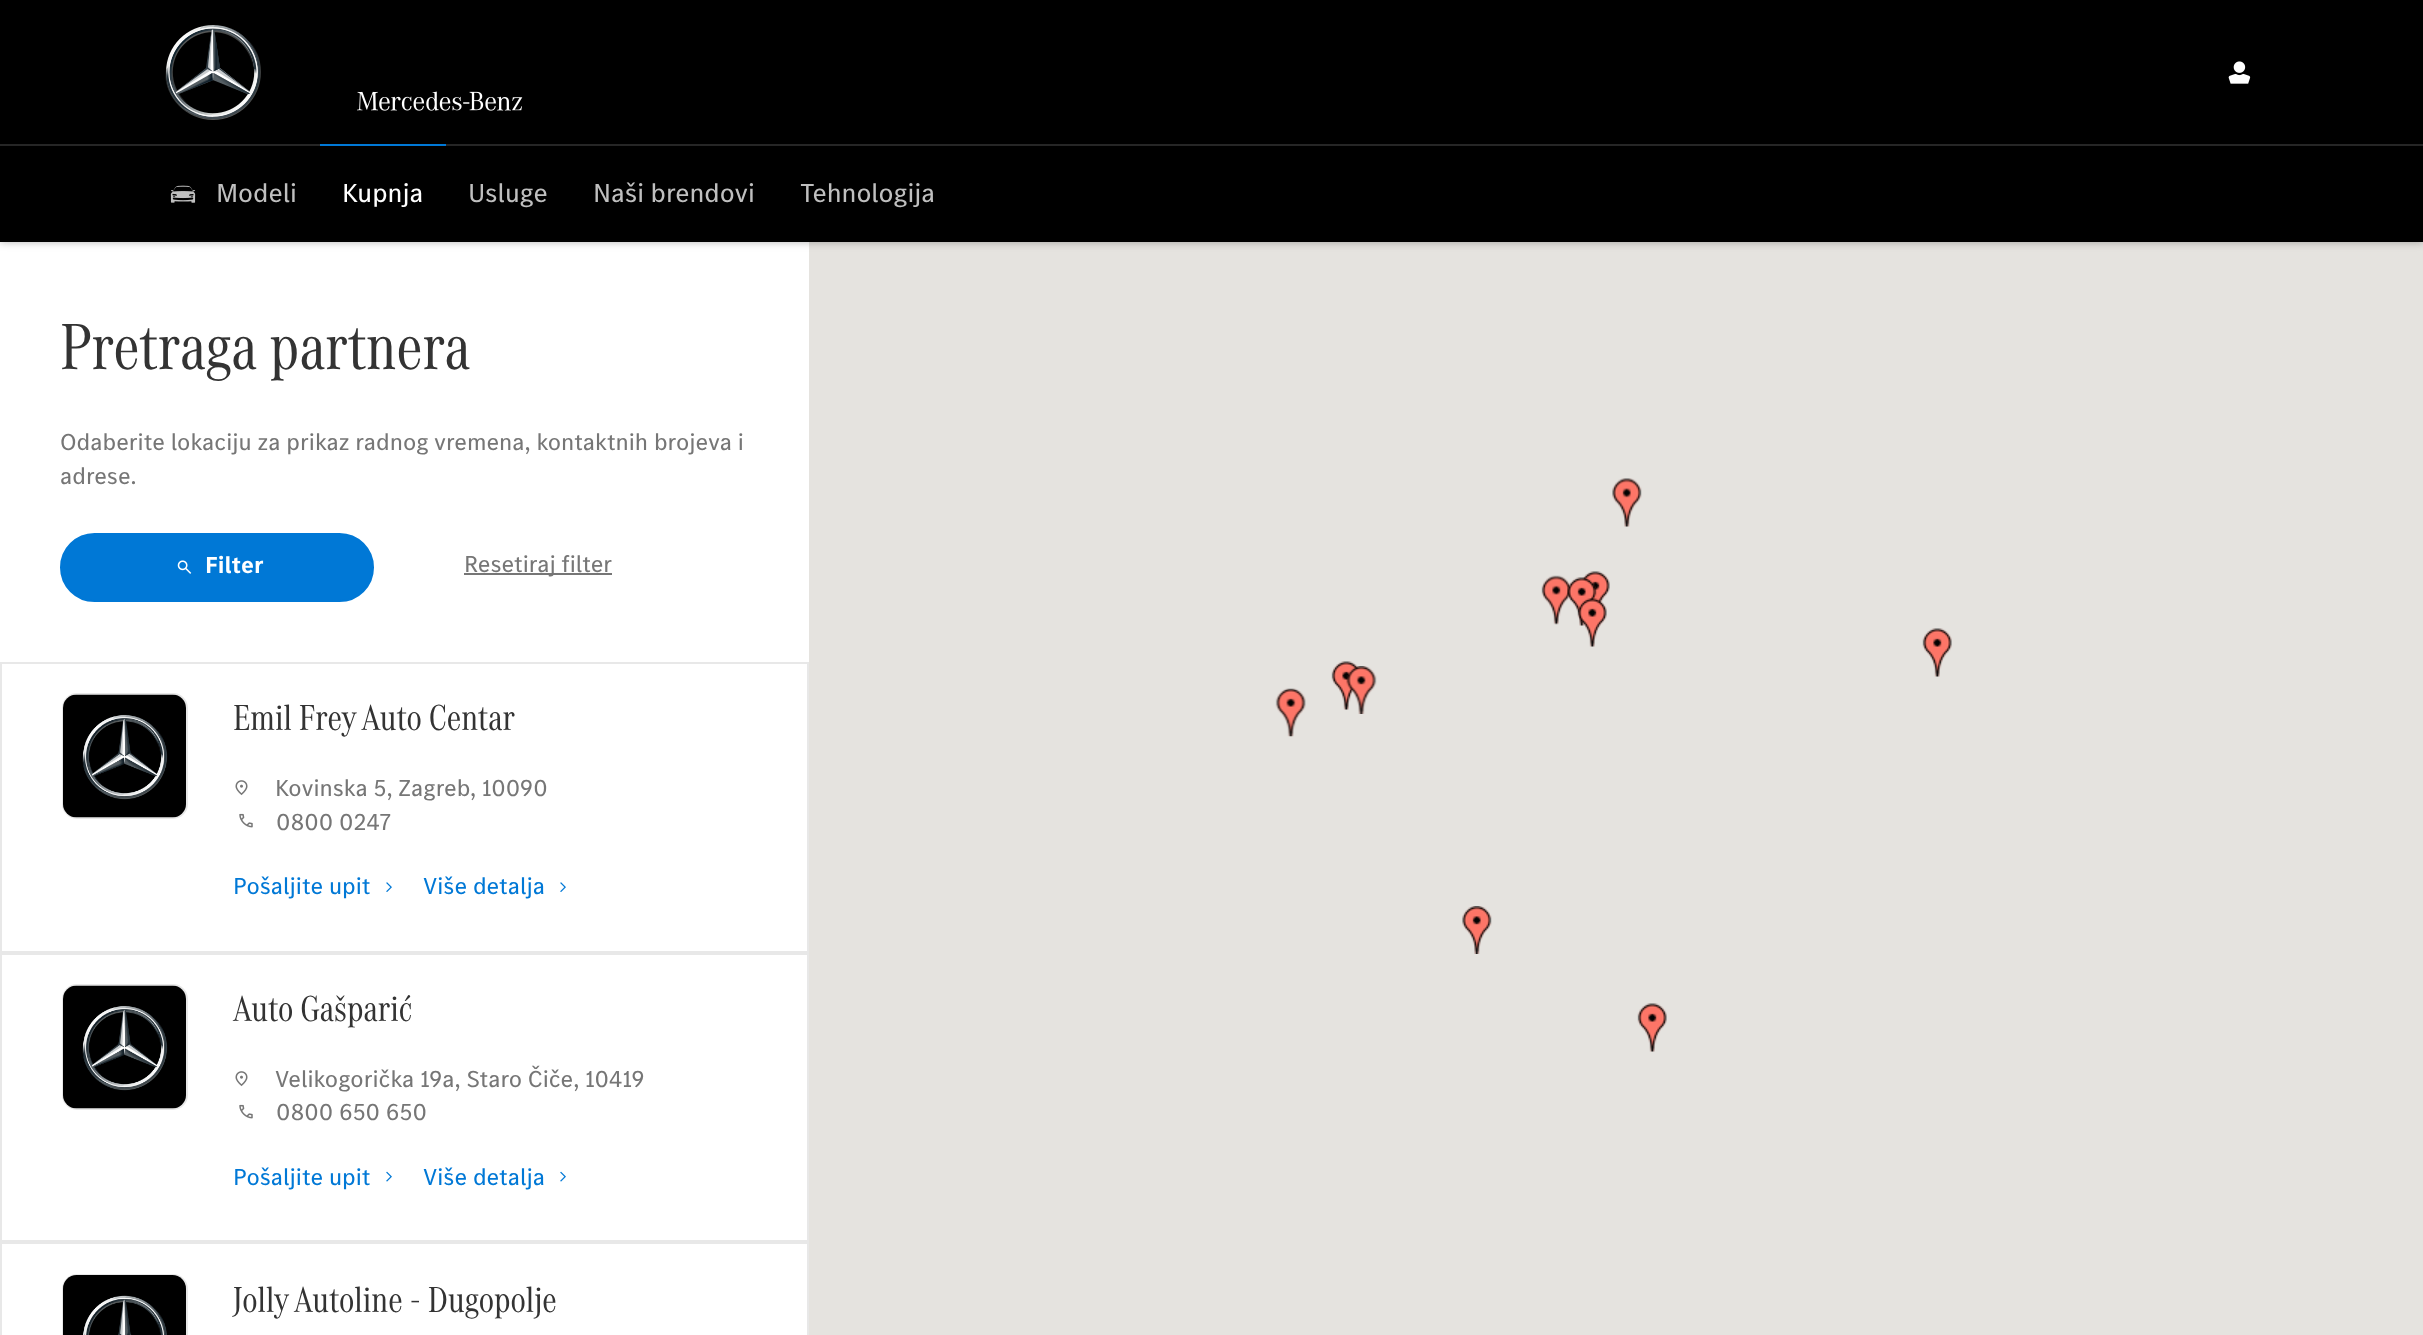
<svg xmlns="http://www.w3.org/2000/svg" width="2423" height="1335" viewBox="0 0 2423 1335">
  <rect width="100%" height="100%" fill="#fff"/>
  <path d="M809 242h1614v1093H809z" fill="#e5e3df"/>
  <path d="M0 0h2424v242H0z" fill="#0000004d" filter="blur(4px)"/>
  <path d="M0 0h2423v242H0z" fill="#000"/>
  <image x="165" y="25" width="96" height="95" href="img/1.png"/>
  <image x="2228" y="61" width="23" height="23" href="img/2.png"/>
  <image x="357" y="91" width="166" height="20" href="img/3.png"/>
  <path d="M0 144h2423v2H0z" fill="#262626"/>
  <image x="170" y="185" width="26" height="18" href="img/4.png"/>
  <path d="M320 144V146H446V240V144Z" fill="#0078d6"/>
  <rect x="61" y="534" width="312" height="67" rx="33.5" fill="#0078d6" stroke="#0078d6" stroke-width="2"/>
  <image x="177" y="560" width="15" height="14" href="img/5.png"/>
  <path d="M464 573h148v2H464z" fill="#767676"/>
  <path d="M1 663h807v289H1z" fill="none" stroke="#e8e8e8" stroke-width="2"/>
  <rect x="63" y="694" width="124" height="124" rx="14" fill="none" stroke="#e8e8e8" stroke-width="2"/>
  <image x="63" y="694" width="123" height="124" href="img/6.png"/>
  <image x="235" y="780" width="13" height="16" href="img/7.png"/>
  <image x="239" y="813" width="14" height="15" href="img/8.png"/>
  <image x="386" y="882" width="6" height="10" href="img/9.png"/>
  <image x="560" y="882" width="6" height="10" href="img/9.png"/>
  <path d="M1 954h807v287H1z" fill="none" stroke="#e8e8e8" stroke-width="2"/>
  <rect x="63" y="985" width="124" height="124" rx="14" fill="none" stroke="#e8e8e8" stroke-width="2"/>
  <image x="63" y="985" width="123" height="124" href="img/6.png"/>
  <image x="235" y="1071" width="13" height="16" href="img/7.png"/>
  <image x="239" y="1104" width="14" height="15" href="img/8.png"/>
  <image x="386" y="1171" width="6" height="11" href="img/10.png"/>
  <image x="560" y="1171" width="6" height="11" href="img/10.png"/>
  <path d="M1 1243h807v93H1z" fill="none" stroke="#e8e8e8" stroke-width="2"/>
  <rect x="63" y="1275" width="124" height="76" rx="14" fill="none" stroke="#e8e8e8" stroke-width="2"/>
  <image x="63" y="1275" width="123" height="60" href="img/11.png"/>
  <image x="1612" y="478" width="30" height="49" href="img/12.png"/>
  <image x="1541" y="575" width="30" height="50" href="img/13.png"/>
  <image x="1582" y="571" width="28" height="33" href="img/14.png"/>
  <image x="1567" y="577" width="30" height="49" href="img/15.png"/>
  <image x="1577" y="598" width="30" height="49" href="img/16.png"/>
  <image x="1922" y="628" width="30" height="49" href="img/17.png"/>
  <image x="1275" y="688" width="31" height="49" href="img/18.png"/>
  <image x="1331" y="661" width="28" height="49" href="img/19.png"/>
  <image x="1346" y="666" width="31" height="48" href="img/20.png"/>
  <image x="1462" y="906" width="30" height="48" href="img/21.png"/>
  <image x="1637" y="1003" width="30" height="49" href="img/17.png"/>
  <text x="216" y="202" font-family="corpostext" font-size="27" fill="#bfbfbf">Modeli</text>
  <text x="342" y="202" font-family="corpostext" font-size="27" fill="#fff">Kupnja</text>
  <g font-family="corpostext" font-size="27" fill="#bfbfbf">
    <text x="468" y="202">Usluge</text>
    <text x="593" y="202">Naši brendovi</text>
    <text x="800" y="202">Tehnologija</text>
  </g>
  <text x="60" y="369" font-family="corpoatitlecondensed" font-size="67.5" fill="#333">Pretraga partnera</text>
  <g font-family="corpostext" font-size="24" fill="#767676">
    <text x="60" y="450">Odaberite lokaciju za prikaz radnog vremena, kontaktnih brojeva i</text>
    <text x="60" y="484">adrese.</text>
  </g>
  <text x="205" y="573" font-family="corpostext" font-size="24" font-weight="bold" fill="#fff">Filter</text>
  <text x="464" y="572" font-family="corpostext" font-size="24" fill="#767676">Resetiraj filter</text>
  <text x="233" y="730" font-family="corpoatitlecondensed" font-size="37.5" fill="#333">Emil Frey Auto Centar</text>
  <g font-family="corpostext" font-size="24" fill="#767676">
    <text x="275" y="796">Kovinska 5, Zagreb, 10090</text>
    <text x="276" y="830">0800 0247</text>
  </g>
  <g font-family="corpostext" font-size="24" fill="#0078d6">
    <text x="233" y="894">Pošaljite upit</text>
    <text x="423" y="894">Više detalja</text>
  </g>
  <text x="233" y="1021" font-family="corpoatitlecondensed" font-size="37.5" fill="#333">Auto Gašparić</text>
  <g font-family="corpostext" font-size="24" fill="#767676">
    <text x="275" y="1087">Velikogorička 19a, Staro Čiče, 10419</text>
    <text x="276" y="1120">0800 650 650</text>
  </g>
  <g font-family="corpostext" font-size="24" fill="#0078d6">
    <text x="233" y="1185">Pošaljite upit</text>
    <text x="423" y="1185">Više detalja</text>
  </g>
  <text x="233" y="1312" font-family="corpoatitlecondensed" font-size="37.5" fill="#333">Jolly Autoline - Dugopolje</text>
</svg>
